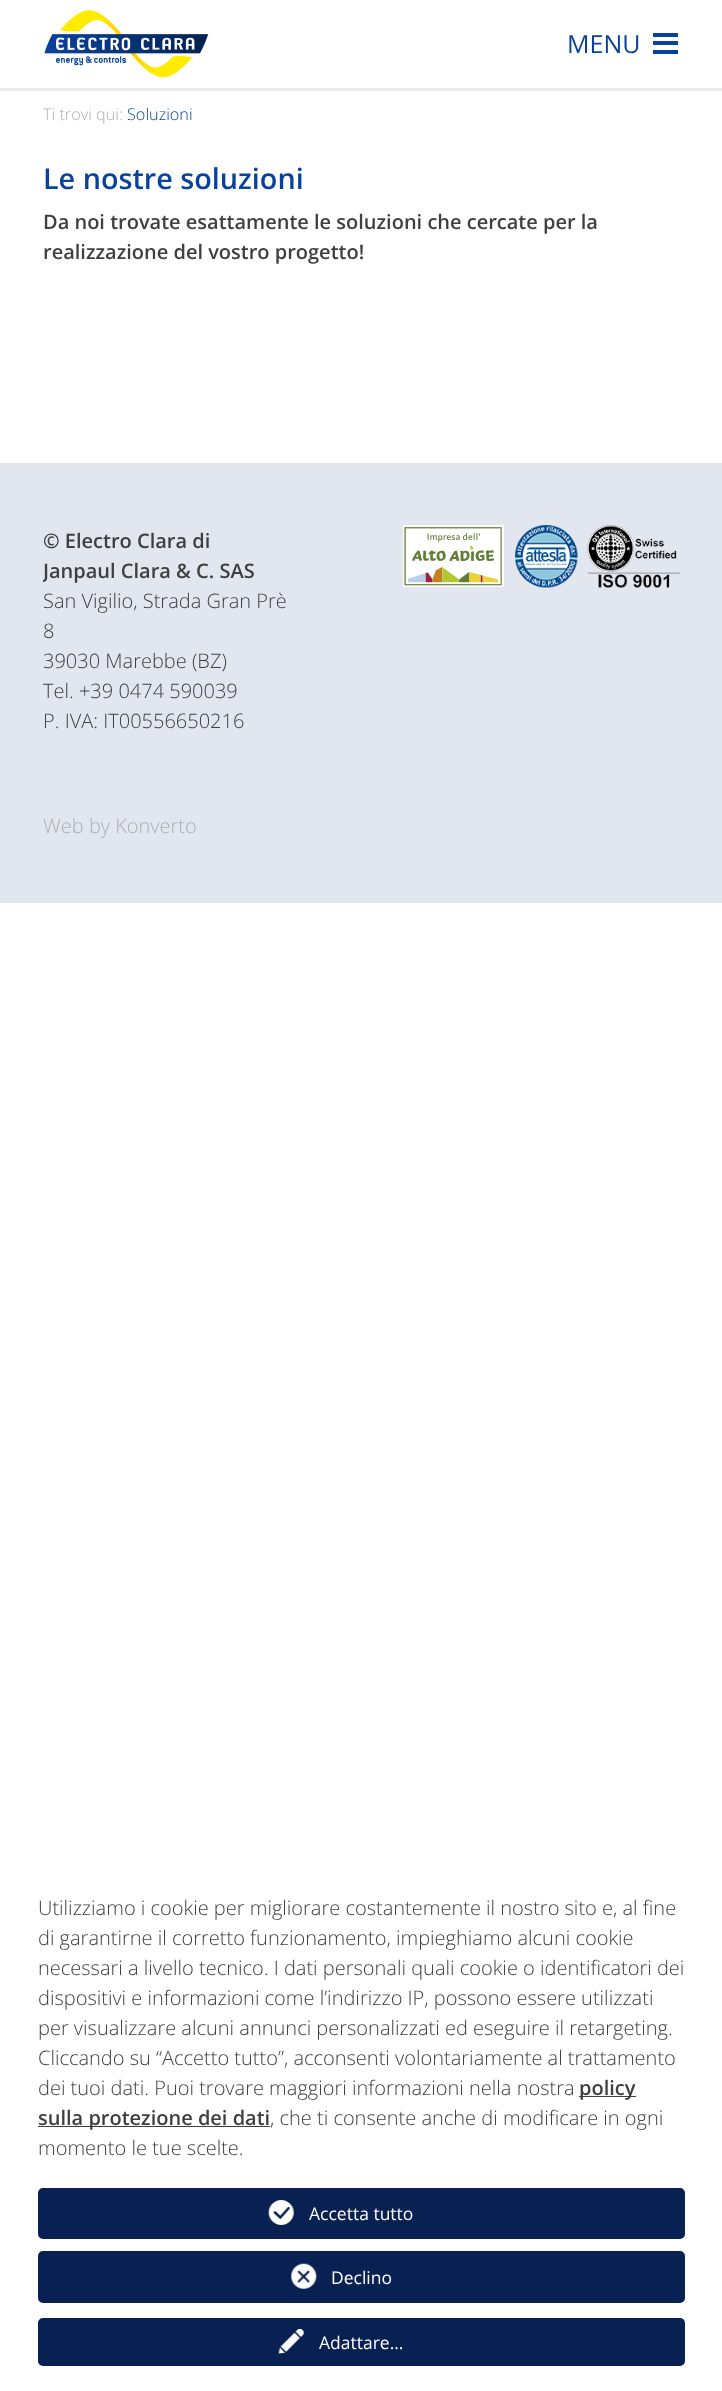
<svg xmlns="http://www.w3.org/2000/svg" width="722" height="2391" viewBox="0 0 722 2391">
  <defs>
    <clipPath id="clip1"><path d="M43 525h243v260H43z"/></clipPath>
  </defs>
  <rect width="100%" height="100%" fill="#fff"/>
  <path d="M0 88h722v3H0z" fill="#ececec"/>
  <image x="44" y="10" width="165" height="68" href="img/1.png"/>
  <path d="M653 33h25v4H653z" fill="#08429c"/>
  <path d="M653 41h25v4H653z" fill="#08429c"/>
  <path d="M653 50h25v4H653z" fill="#08429c"/>
  <path d="M0 463h722v440H0z" fill="#e2e6ee"/>
  <image x="403" y="525" width="101" height="62" href="img/2.png"/>
  <image x="515" y="525" width="63" height="63" href="img/3.png"/>
  <image x="587" y="525" width="93" height="63" href="img/4.png"/>
  <path d="M579 2096h57v1H579z" fill="#403f3f"/>
  <path d="M38 2126h232v1H38z" fill="#403f3f"/>
  <rect x="39.5" y="2189.5" width="644" height="48" rx="3.5" fill="#082152" stroke="#082152" stroke-width="3"/>
  <image x="268" y="2200" width="26" height="25" href="img/5.png"/>
  <rect x="39.5" y="2252.5" width="644" height="49" rx="3.5" fill="#082152" stroke="#082152" stroke-width="3"/>
  <image x="291" y="2263" width="26" height="26" href="img/6.png"/>
  <rect x="39.5" y="2319.5" width="644" height="45" rx="3.5" fill="#082152" stroke="#082152" stroke-width="3"/>
  <image x="278" y="2329" width="26" height="25" href="img/7.png"/>
  <text x="567" y="53" font-family="Open Sans" font-size="25" fill="#08429c">MENU</text>
  <text x="43" y="120" font-family="Open Sans" font-size="16.25" font-weight="300" fill="#afb0b0">Ti trovi qui:</text>
  <text x="127" y="120" font-family="Open Sans" font-size="16.25" font-weight="300" fill="#08429c">Soluzioni</text>
  <text x="43" y="189" font-family="Open Sans" font-size="28.75" font-weight="600" fill="#08429c">Le nostre soluzioni</text>
  <g font-family="Open Sans" font-size="20" font-weight="600" fill="#403f3f">
    <text x="43" y="229">Da noi trovate esattamente le soluzioni che cercate per la</text>
    <text x="43" y="259">realizzazione del vostro progetto!</text>
    <text x="43" y="548">© Electro Clara di</text>
  </g>
  <g clip-path="url(#clip1)">
    <text x="43" y="578" font-family="Open Sans" font-size="20" font-weight="600" fill="#403f3f">Janpaul Clara &amp; C. SAS</text>
  </g>
  <g font-family="Open Sans" font-size="20" font-weight="300" fill="#403f3f">
    <text x="43" y="608">San Vigilio, Strada Gran Prè</text>
    <text x="43" y="638">8</text>
    <text x="43" y="668">39030 Marebbe (BZ)</text>
    <text x="43" y="698">Tel. +39 0474 590039</text>
    <text x="43" y="728">P. IVA: IT00556650216</text>
  </g>
  <text x="43" y="833" font-family="Open Sans" font-size="20" font-weight="300" fill="#afb0b0">Web by Konverto</text>
  <g font-family="Open Sans" font-size="20" font-weight="300" fill="#403f3f">
    <text x="38" y="1915">Utilizziamo i cookie per migliorare costantemente il nostro sito e, al fine</text>
    <text x="38" y="1945">di garantirne il corretto funzionamento, impieghiamo alcuni cookie</text>
    <text x="38" y="1975">necessari a livello tecnico. I dati personali quali cookie o identificatori dei</text>
    <text x="38" y="2005">dispositivi e informazioni come l’indirizzo IP, possono essere utilizzati</text>
    <text x="38" y="2035">per visualizzare alcuni annunci personalizzati ed eseguire il retargeting.</text>
    <text x="38" y="2065">Cliccando su “Accetto tutto”, acconsenti volontariamente al trattamento</text>
    <text x="38" y="2095">dei tuoi dati. Puoi trovare maggiori informazioni nella nostra</text>
  </g>
  <g font-family="Open Sans" font-size="20" font-weight="600" fill="#403f3f">
    <text x="579" y="2095">policy</text>
    <text x="38" y="2125">sulla protezione dei dati</text>
  </g>
  <g font-family="Open Sans" font-size="20" font-weight="300" fill="#403f3f">
    <text x="270" y="2125">, che ti consente anche di modificare in ogni</text>
    <text x="38" y="2155">momento le tue scelte.</text>
  </g>
  <g font-family="Open Sans" font-size="17.5" fill="#fff">
    <text x="309" y="2220">Accetta tutto</text>
    <text x="331" y="2284">Declino</text>
    <text x="319" y="2349">Adattare...</text>
  </g>
</svg>
